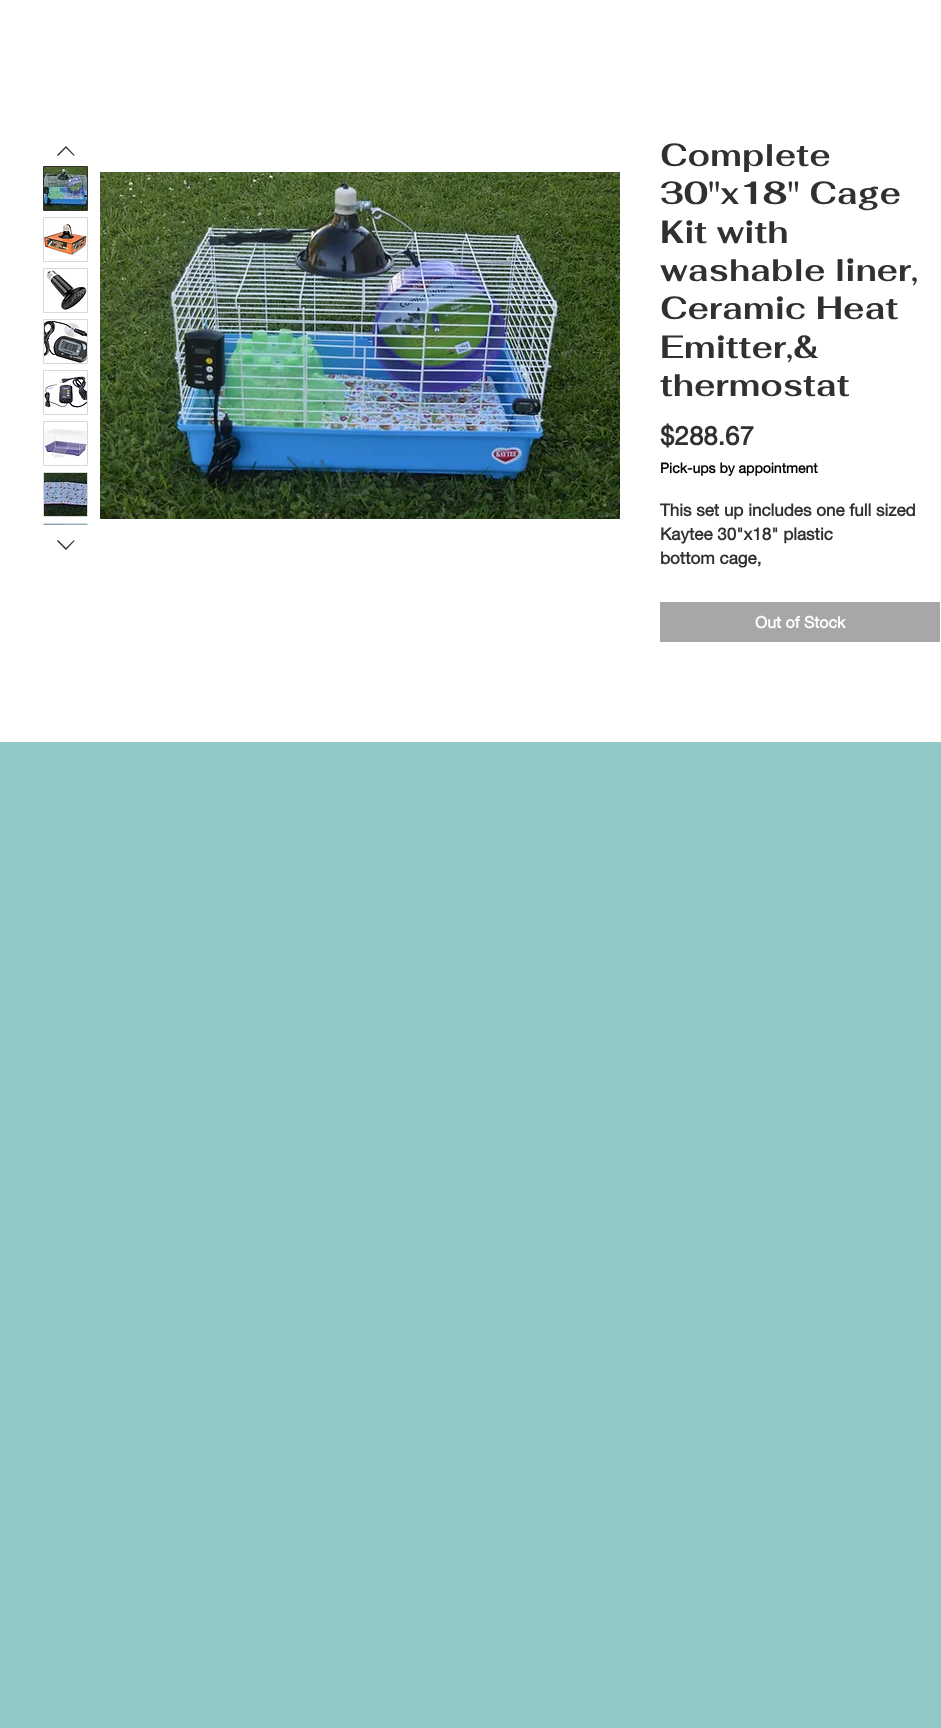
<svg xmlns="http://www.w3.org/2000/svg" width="941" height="1728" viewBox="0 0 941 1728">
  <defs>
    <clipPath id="clip1"><path d="M39 162h53v363H39z"/></clipPath>
  </defs>
  <rect width="100%" height="100%" fill="#91c9c6"/>
  <path d="M0 0h941v742H0z" fill="#fff"/>
  <path d="M66 146L74.5 155L74 156L66 148L58 156L57 155Z" fill="#303030" fill-rule="evenodd"/>
  <path d="M43.5 166.5h44v44H43.5z" fill="none" stroke="#303030"/>
  <image x="44" y="167" width="43" height="43" href="img/1.png"/>
  <path d="M43.5 217.5h44v44H43.5z" fill="none" stroke="#d8d8d8"/>
  <image x="44" y="224" width="43" height="31" href="img/2.png"/>
  <path d="M43.5 268.5h44v44H43.5z" fill="none" stroke="#d8d8d8"/>
  <image x="46" y="270" width="41" height="40" href="img/3.png"/>
  <path d="M43.5 319.5h44v44H43.5z" fill="none" stroke="#d8d8d8"/>
  <image x="44" y="320" width="43" height="43" href="img/4.png"/>
  <path d="M43.5 370.5h44v44H43.5z" fill="none" stroke="#d8d8d8"/>
  <image x="44" y="376" width="43" height="32" href="img/5.png"/>
  <path d="M43.5 421.5h44v44H43.5z" fill="none" stroke="#d8d8d8"/>
  <image x="44" y="428" width="43" height="30" href="img/6.png"/>
  <path d="M43.5 472.5h44v44H43.5z" fill="none" stroke="#d8d8d8"/>
  <image x="44" y="473" width="43" height="43" href="img/7.png"/>
  <path d="M74 540L74.5 541L66 550L57 541L58 540L66 548Z" fill="#303030" fill-rule="evenodd"/>
  <g clip-path="url(#clip1)">
    <path d="M43.5 523.5h44v44H43.5z" fill="none" stroke="#d8d8d8"/>
  </g>
  <image x="44" y="524" width="43" height="1" href="img/8.png"/>
  <image x="100" y="172" width="520" height="347" href="img/9.png"/>
  <path d="M660 602h280v40H660z" fill="#a8a7a7"/>
  <g font-family="Fahkwang" font-size="32" font-weight="bold" fill="#303030">
    <text x="660" y="166">Complete</text>
    <text x="660" y="204">30"x18" Cage</text>
    <text x="660" y="243">Kit with</text>
    <text x="660" y="281">washable liner,</text>
    <text x="660" y="319">Ceramic Heat</text>
    <text x="660" y="358">Emitter,&amp;</text>
    <text x="660" y="396">thermostat</text>
  </g>
  <text x="660" y="445" font-family="helvetica neue" font-size="26" font-weight="bold" fill="#303030">$288.67</text>
  <text x="660" y="473" font-family="helvetica neue" font-size="14" font-weight="bold" fill="#000">Pick-ups by appointment</text>
  <g font-family="helvetica neue" font-size="17" font-weight="bold" fill="#303030">
    <text x="660" y="516">This set up includes one full sized</text>
    <text x="660" y="540">Kaytee 30"x18" plastic</text>
    <text x="660" y="564">bottom cage,</text>
  </g>
  <text x="755" y="628" font-family="helvetica neue" font-size="16" font-weight="bold" fill="#fff">Out of Stock</text>
</svg>
